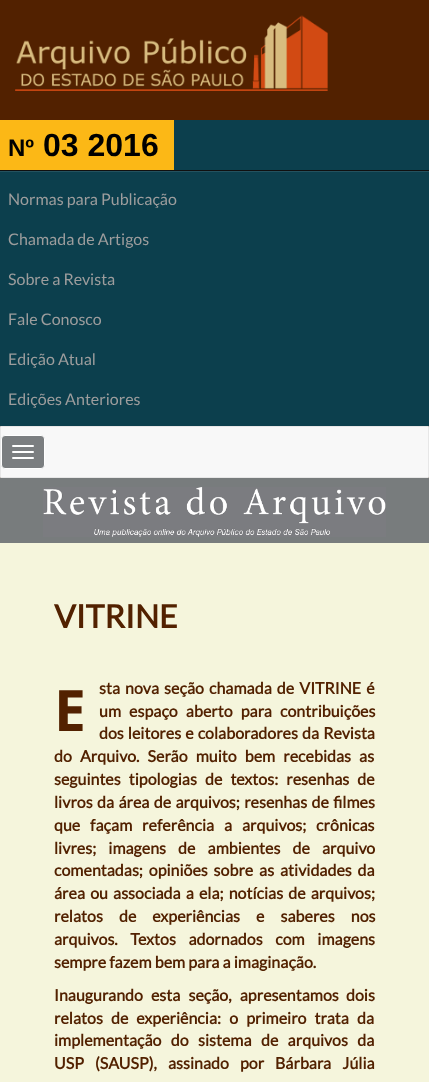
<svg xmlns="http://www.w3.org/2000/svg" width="429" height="1082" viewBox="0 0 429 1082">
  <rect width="100%" height="100%" fill="#522100"/>
  <image x="15" y="15" width="313" height="76" href="img/1.png"/>
  <path d="M0 120h429v306H0z" fill="#0c3f4d"/>
  <path d="M0 120h174v50H0z" fill="#fcb816"/>
  <path d="M0 171h429v1H0z" fill="#24525f"/>
  <path d="M0 170h429v1H0z" fill="#101010"/>
  <path d="M0.5 426.5h428v51H0.5z" fill="#f8f8f8" stroke="#e7e7e7"/>
  <rect x="1.5" y="435.5" width="43" height="33" rx="3.5" fill="#7b7e80" stroke="#fff"/>
  <rect x="12" y="445" width="22" height="2" rx="1" fill="#fff"/>
  <rect x="12" y="451" width="22" height="2" rx="1" fill="#fff"/>
  <rect x="12" y="457" width="22" height="2" rx="1" fill="#fff"/>
  <path d="M0 478h429v65H0z" fill="#787c7d"/>
  <image x="43" y="487" width="343" height="50" href="img/2.png"/>
  <path d="M0 543h429v539H0z" fill="#f5f5dc"/>
  <text x="8" y="156" font-family="Liberation Sans" font-size="24" font-weight="bold" fill="#000">Nº</text>
  <text x="43" y="156" font-family="Liberation Sans" font-size="32" font-weight="bold" fill="#000">03 2016</text>
  <g font-family="Lato" font-size="16" fill="#9d9d9d">
    <text x="8" y="205">Normas para Publicação</text>
    <text x="8" y="245">Chamada de Artigos</text>
    <text x="8" y="285">Sobre a Revista</text>
    <text x="8" y="325">Fale Conosco</text>
    <text x="8" y="365">Edição Atual</text>
    <text x="8" y="405">Edições Anteriores</text>
  </g>
  <text x="54" y="628" font-family="Lato" font-size="32" font-weight="bold" fill="#522100">VITRINE</text>
  <text x="54" y="731" font-family="Noto Sans" font-size="57" font-weight="bold" fill="#522100">E</text>
  <g font-family="Lato" font-size="16" font-weight="bold" fill="#522100">
    <text x="99" y="694" word-spacing="2">sta nova seção chamada de VITRINE é</text>
    <text x="99" y="717" word-spacing="5">um espaço aberto para contribuições</text>
    <text x="99" y="739" word-spacing="1">dos leitores e colaboradores da Revista</text>
    <text x="54" y="762" word-spacing="5">do Arquivo. Serão muito bem recebidas as</text>
    <text x="54" y="785" word-spacing="5">seguintes tipologias de textos: resenhas de</text>
    <text x="54" y="808" word-spacing="1.25">livros da área de arquivos; resenhas de filmes</text>
    <text x="54" y="831" word-spacing="6.75">que façam referência a arquivos; crônicas</text>
    <text x="54" y="854" word-spacing="9">livres; imagens de ambientes de arquivo</text>
    <text x="54" y="876" word-spacing="2.75">comentadas; opiniões sobre as atividades da</text>
    <text x="54" y="899" word-spacing="2">área ou associada a ela; notícias de arquivos;</text>
    <text x="54" y="922" word-spacing="13">relatos de experiências e saberes nos</text>
    <text x="54" y="945" word-spacing="9.5">arquivos. Textos adornados com imagens</text>
    <text x="54" y="968">sempre fazem bem para a imaginação.</text>
    <text x="54" y="1001" word-spacing="5">Inaugurando esta seção, apresentamos</text>
    <text x="346" y="1001">dois</text>
    <text x="54" y="1024" word-spacing="5">relatos de experiência: o primeiro trata da</text>
    <text x="54" y="1046" word-spacing="6.25">implementação do sistema de arquivos da</text>
    <text x="54" y="1069" word-spacing="8">USP (SAUSP), assinado por</text>
    <text x="275" y="1069" word-spacing="8">Bárbara Júlia</text>
  </g>
</svg>
